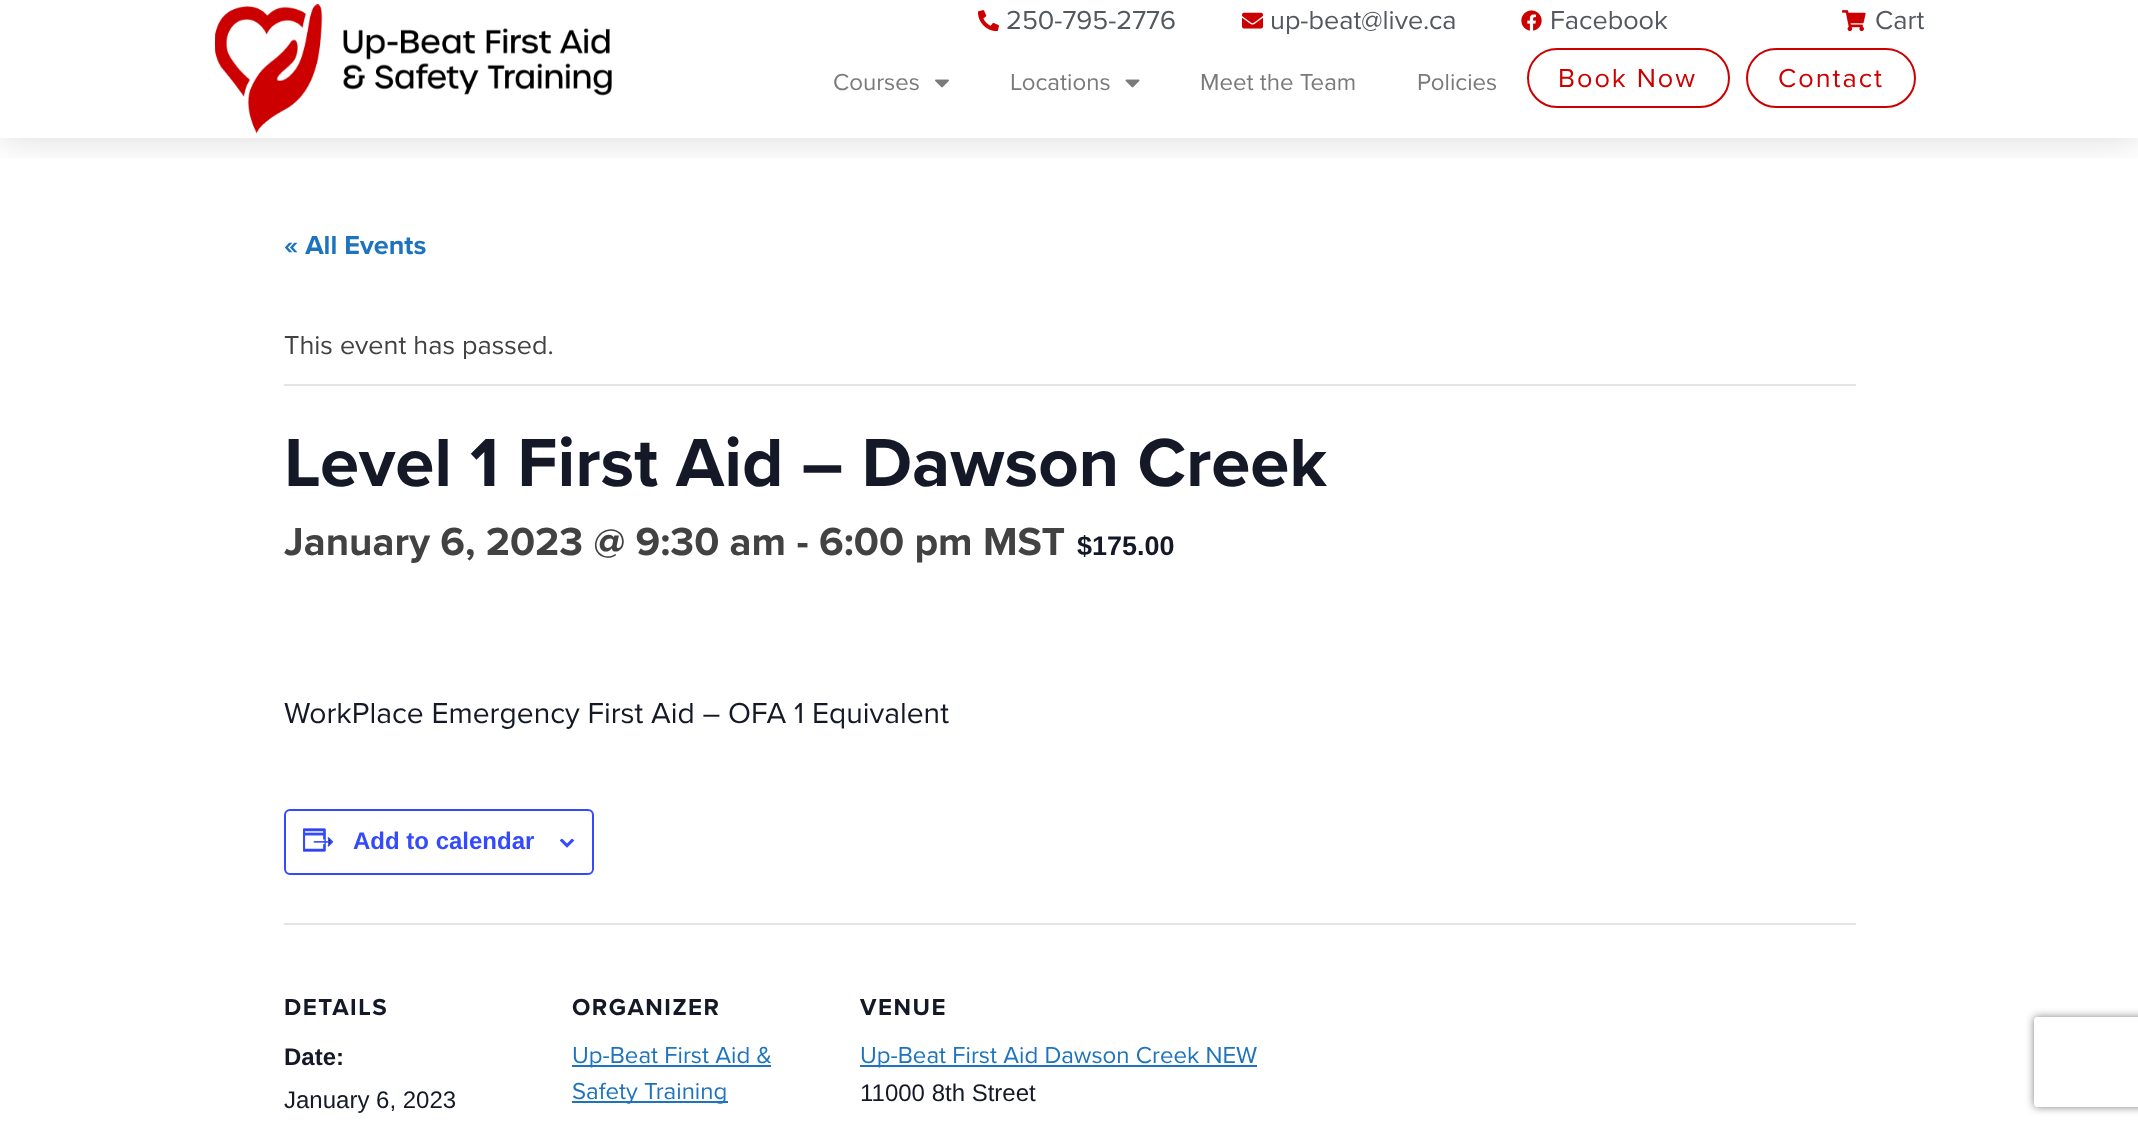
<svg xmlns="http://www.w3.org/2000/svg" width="2138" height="1128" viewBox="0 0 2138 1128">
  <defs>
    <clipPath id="clip1"><path d="M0 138h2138v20H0z"/></clipPath>
    <clipPath id="clip2"><path d="M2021 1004H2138V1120H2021ZM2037 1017H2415C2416.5 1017 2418 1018.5 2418 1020V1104C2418 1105.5 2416.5 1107 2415 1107H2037C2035.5 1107 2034 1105.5 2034 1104V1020C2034 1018.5 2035.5 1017 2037 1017Z" clip-rule="evenodd"/></clipPath>
  </defs>
  <rect width="100%" height="100%" fill="#fff"/>
  <g clip-path="url(#clip1)">
    <path d="M0 0h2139v138H0z" fill="#00000026" filter="blur(18px)"/>
  </g>
  <image x="215" y="4" width="397" height="130" href="img/1.png"/>
  <image x="978" y="10" width="21" height="22" href="img/2.png"/>
  <image x="1242" y="12" width="21" height="17" href="img/3.png"/>
  <image x="1521" y="10" width="21" height="21" href="img/4.png"/>
  <image x="1842" y="10" width="24" height="22" href="img/5.png"/>
  <image x="935" y="79" width="14" height="9" href="img/6.png"/>
  <image x="1125" y="79" width="15" height="9" href="img/7.png"/>
  <rect x="1528" y="49" width="201" height="58" rx="29" fill="none" stroke="#c00" stroke-width="2"/>
  <rect x="1747" y="49" width="168" height="58" rx="29" fill="none" stroke="#c00" stroke-width="2"/>
  <path d="M284 384h1572v2H284z" fill="#e4e4e4"/>
  <rect x="285" y="810" width="308" height="64" rx="5" fill="none" stroke="#334aff" stroke-width="2"/>
  <image x="303" y="828" width="31" height="24" href="img/8.png"/>
  <image x="560" y="839" width="15" height="9" href="img/9.png"/>
  <path d="M284 923h1572v2H284z" fill="#e4e4e4"/>
  <path d="M572 1065h199v2H572z" fill="#1e73be"/>
  <path d="M572 1101h156v2H572z" fill="#1e73be"/>
  <path d="M860 1065h397v2H860z" fill="#1e73be"/>
  <g clip-path="url(#clip2)">
    <rect x="2034" y="1017" width="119" height="90" rx="3" fill="#808080" filter="blur(4px)"/>
  </g>
  <g font-family="Proxima Nova" font-size="27" fill="#54595f">
    <text x="1006" y="29">250-795-2776</text>
    <text x="1270" y="29">up-beat@live.ca</text>
    <text x="1550" y="29">Facebook</text>
    <text x="1875" y="29">Cart</text>
  </g>
  <g font-family="Proxima Nova" font-size="24" fill="#7a7a7a">
    <text x="833" y="90">Courses</text>
    <text x="1010" y="90">Locations</text>
    <text x="1200" y="90">Meet the Team</text>
    <text x="1417" y="90">Policies</text>
  </g>
  <g font-family="Proxima Nova" font-size="27" letter-spacing="2" fill="#c00">
    <text x="1558" y="87">Book Now</text>
    <text x="1778" y="87">Contact</text>
  </g>
  <text x="284" y="254" font-family="Proxima Nova" font-size="27" font-weight="bold" fill="#1e73be">« All Events</text>
  <text x="284" y="354" font-family="Proxima Nova" font-size="27" fill="#424242">This event has passed.</text>
  <text x="284" y="486" font-family="Proxima Nova" font-size="70.5" font-weight="bold" fill="#141827">Level 1 First Aid – Dawson Creek</text>
  <text x="284" y="555" font-family="Proxima Nova" font-size="40.5" font-weight="bold" fill="#424242">January 6, 2023 @ 9:30 am - 6:00 pm MST</text>
  <text x="1077" y="555" font-family="Liberation Sans" font-size="27" font-weight="bold" fill="#141827">$175.00</text>
  <text x="284" y="723" font-family="Proxima Nova" font-size="30" fill="#141827">WorkPlace Emergency First Aid – OFA 1 Equivalent</text>
  <text x="353" y="849" font-family="Liberation Sans" font-size="24" font-weight="bold" fill="#334aff">Add to calendar</text>
  <text x="284" y="1015" font-family="Proxima Nova" font-size="24" font-weight="bold" letter-spacing="1.5" fill="#141827">DETAILS</text>
  <text x="284" y="1065" font-family="Liberation Sans" font-size="24" font-weight="bold" fill="#141827">Date:</text>
  <text x="284" y="1108" font-family="Liberation Sans" font-size="24" fill="#141827">January 6, 2023</text>
  <text x="572" y="1015" font-family="Proxima Nova" font-size="24" font-weight="bold" letter-spacing="1.5" fill="#141827">ORGANIZER</text>
  <g font-family="Proxima Nova" font-size="24" fill="#1e73be">
    <text x="572" y="1063">Up-Beat First Aid &amp;</text>
    <text x="572" y="1099">Safety Training</text>
  </g>
  <text x="860" y="1015" font-family="Proxima Nova" font-size="24" font-weight="bold" letter-spacing="1.5" fill="#141827">VENUE</text>
  <text x="860" y="1063" font-family="Proxima Nova" font-size="24" fill="#1e73be">Up-Beat First Aid Dawson Creek NEW</text>
  <text x="860" y="1101" font-family="Liberation Sans" font-size="24" fill="#141827">11000 8th Street</text>
</svg>
